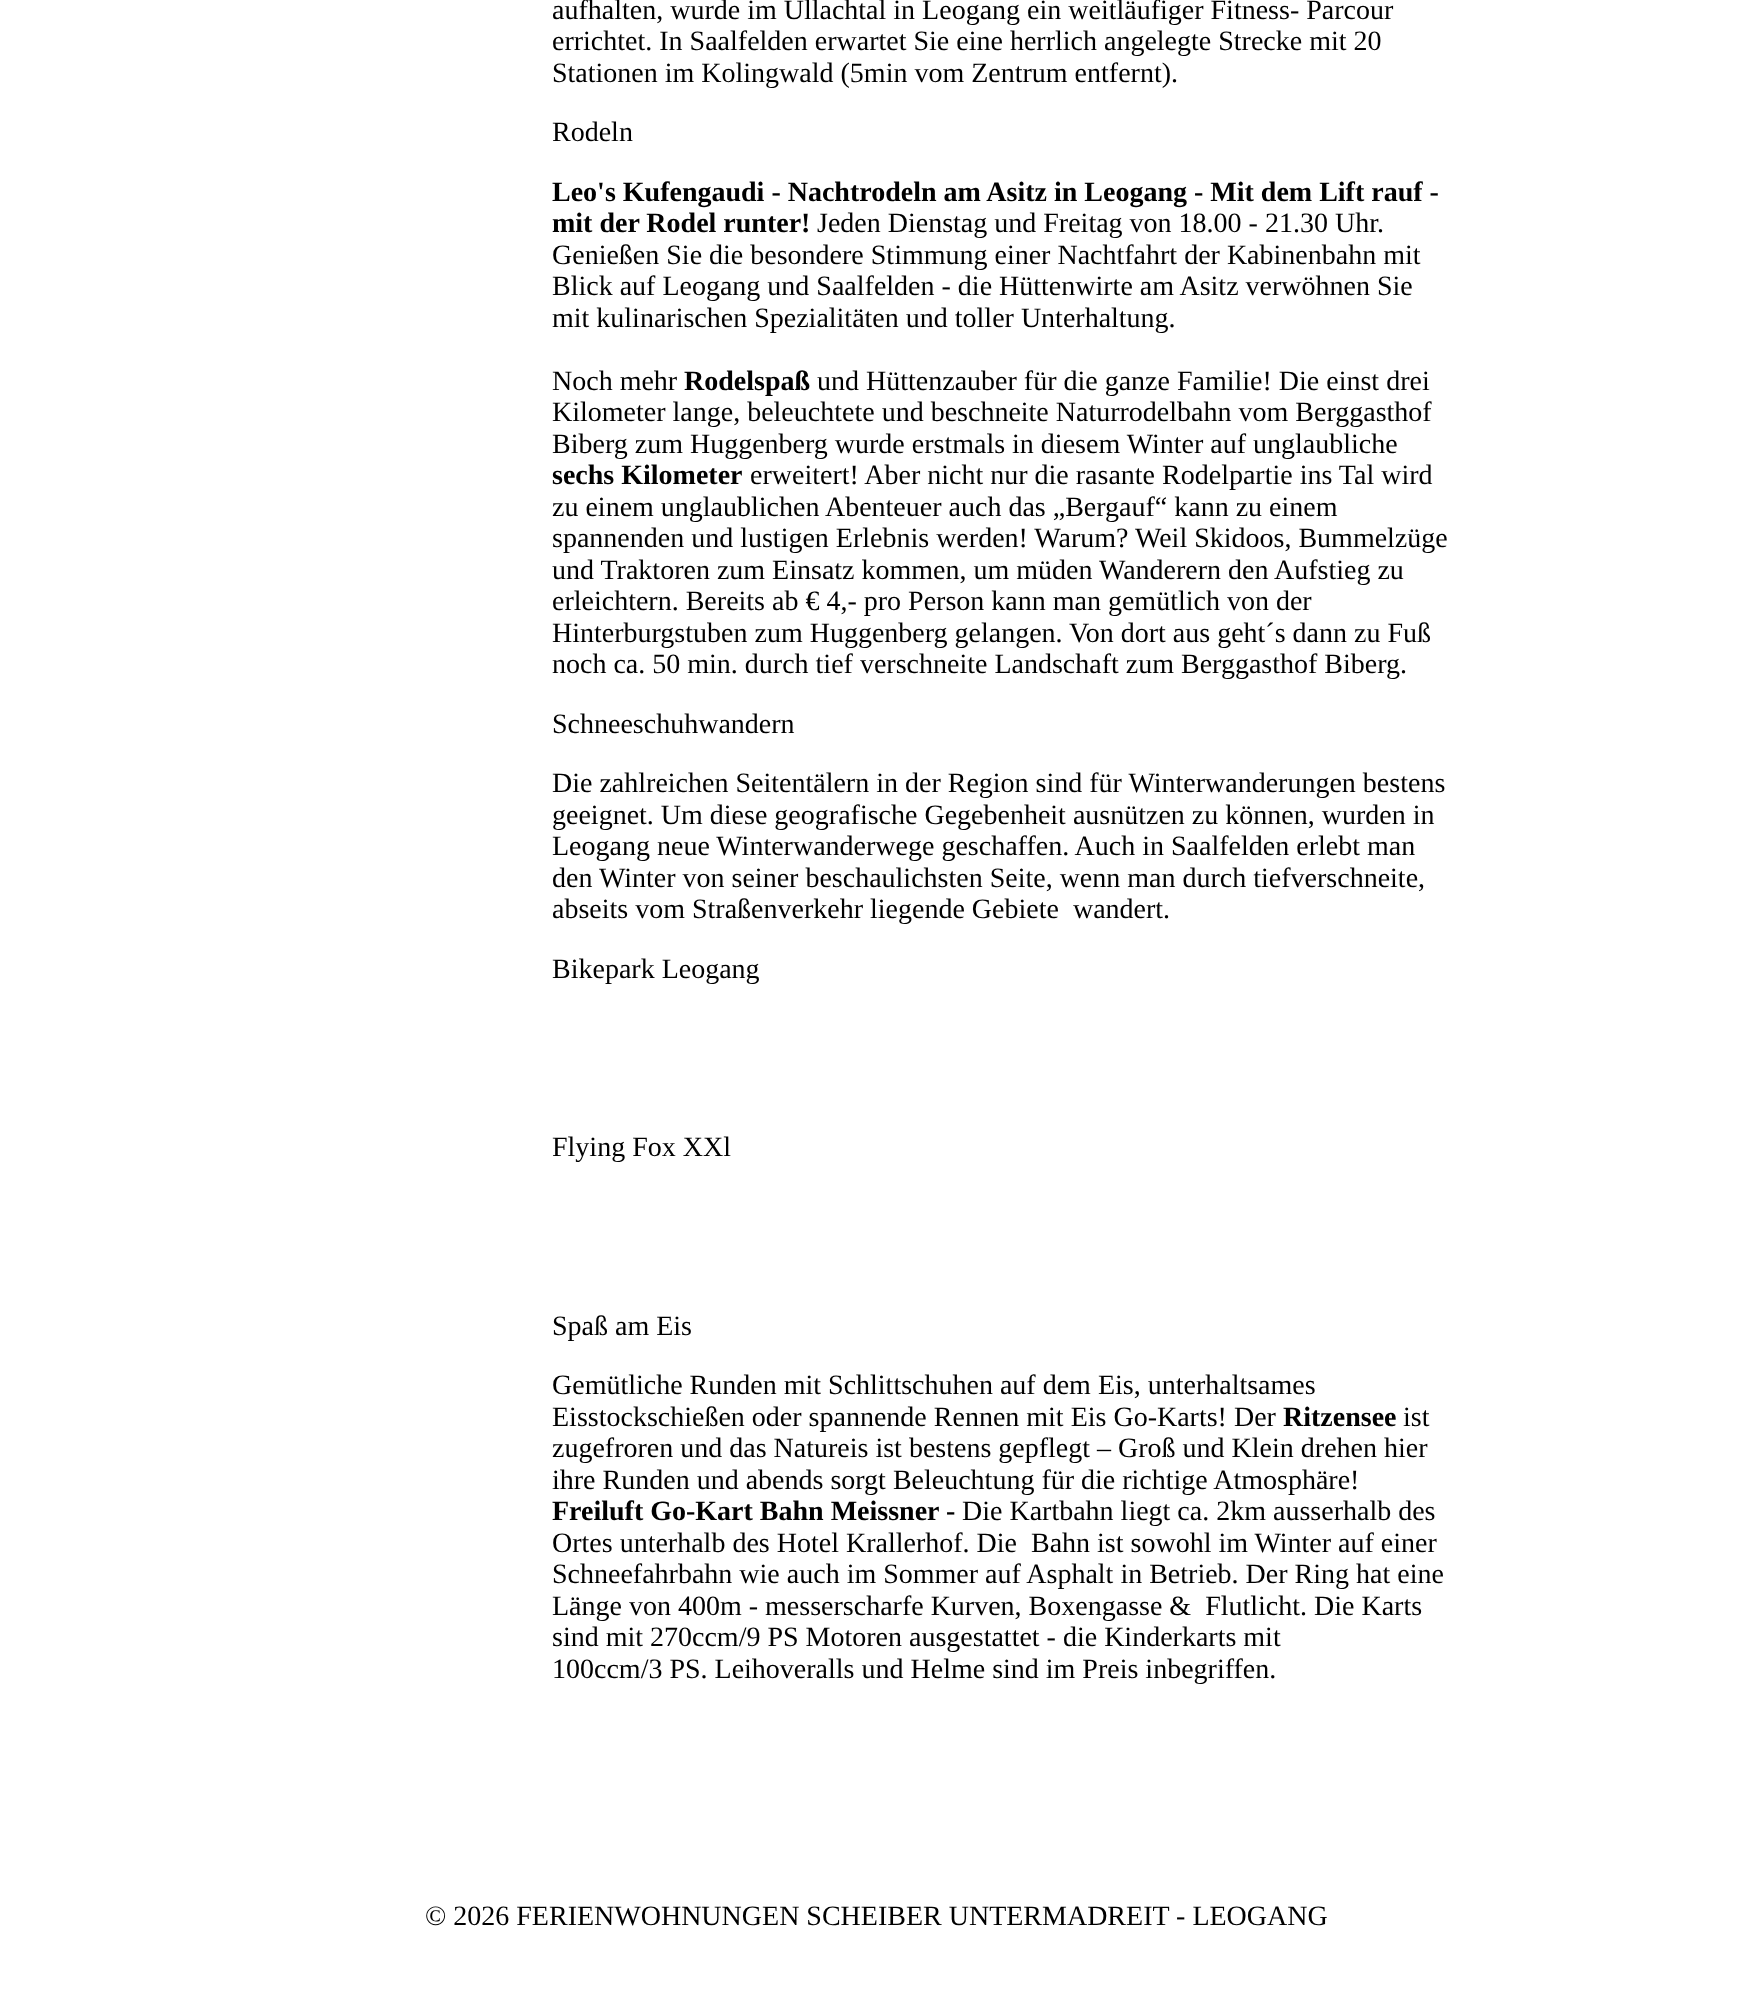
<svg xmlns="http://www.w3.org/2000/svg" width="1752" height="2003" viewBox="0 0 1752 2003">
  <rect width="100%" height="100%" fill="#fff"/>
  <g font-family="Liberation Serif" font-size="28" fill="#000">
    <text x="552" y="19">aufhalten, wurde im Ullachtal in Leogang ein weitläufiger Fitness- Parcour</text>
    <text x="552" y="50">errichtet. In Saalfelden erwartet Sie eine herrlich angelegte Strecke mit 20</text>
    <text x="552" y="82">Stationen im Kolingwald (5min vom Zentrum entfernt).</text>
    <text x="552" y="141">Rodeln</text>
  </g>
  <g font-family="Liberation Serif" font-size="28" font-weight="bold" fill="#000">
    <text x="552" y="201">Leo's Kufengaudi - Nachtrodeln am Asitz in Leogang - Mit dem Lift rauf -</text>
    <text x="552" y="232">mit der Rodel runter!</text>
  </g>
  <g font-family="Liberation Serif" font-size="28" fill="#000">
    <text x="817" y="232">Jeden Dienstag und Freitag von 18.00 - 21.30 Uhr.</text>
    <text x="552" y="264">Genießen Sie die besondere Stimmung einer Nachtfahrt der Kabinenbahn mit</text>
    <text x="552" y="295">Blick auf Leogang und Saalfelden - die Hüttenwirte am Asitz verwöhnen Sie</text>
    <text x="552" y="327">mit kulinarischen Spezialitäten und toller Unterhaltung.</text>
    <text x="552" y="390">Noch mehr</text>
  </g>
  <text x="684" y="390" font-family="Liberation Serif" font-size="28" font-weight="bold" fill="#000">Rodelspaß</text>
  <g font-family="Liberation Serif" font-size="28" fill="#000">
    <text x="817" y="390">und Hüttenzauber für die ganze Familie! Die einst drei</text>
    <text x="552" y="421">Kilometer lange, beleuchtete und beschneite Naturrodelbahn vom Berggasthof</text>
    <text x="552" y="453">Biberg zum Huggenberg wurde erstmals in diesem Winter auf unglaubliche</text>
  </g>
  <text x="552" y="484" font-family="Liberation Serif" font-size="28" font-weight="bold" fill="#000">sechs Kilometer</text>
  <g font-family="Liberation Serif" font-size="28" fill="#000">
    <text x="750" y="484">erweitert! Aber nicht nur die rasante Rodelpartie ins Tal wird</text>
    <text x="552" y="516">zu einem unglaublichen Abenteuer auch das „Bergauf“ kann zu einem</text>
    <text x="552" y="547">spannenden und lustigen Erlebnis werden! Warum? Weil Skidoos, Bummelzüge</text>
    <text x="552" y="579">und Traktoren zum Einsatz kommen, um müden Wanderern den Aufstieg zu</text>
    <text x="552" y="610">erleichtern. Bereits ab € 4,- pro Person kann man gemütlich von der</text>
    <text x="552" y="642">Hinterburgstuben zum Huggenberg gelangen. Von dort aus geht´s dann zu Fuß</text>
    <text x="552" y="673">noch ca. 50 min. durch tief verschneite Landschaft zum Berggasthof Biberg.</text>
    <text x="552" y="733">Schneeschuhwandern</text>
    <text x="552" y="792">Die zahlreichen Seitentälern in der Region sind für Winterwanderungen bestens</text>
    <text x="552" y="824">geeignet. Um diese geografische Gegebenheit ausnützen zu können, wurden in</text>
    <text x="552" y="855">Leogang neue Winterwanderwege geschaffen. Auch in Saalfelden erlebt man</text>
    <text x="552" y="887">den Winter von seiner beschaulichsten Seite, wenn man durch tiefverschneite,</text>
    <text x="552" y="918" xml:space="preserve">abseits vom Straßenverkehr liegende Gebiete  wandert.</text>
    <text x="552" y="978">Bikepark Leogang</text>
    <text x="552" y="1156">Flying Fox XXl</text>
    <text x="552" y="1335">Spaß am Eis</text>
    <text x="552" y="1394">Gemütliche Runden mit Schlittschuhen auf dem Eis, unterhaltsames</text>
    <text x="552" y="1426">Eisstockschießen oder spannende Rennen mit Eis Go-Karts! Der</text>
  </g>
  <text x="1283" y="1426" font-family="Liberation Serif" font-size="28" font-weight="bold" fill="#000">Ritzensee</text>
  <g font-family="Liberation Serif" font-size="28" fill="#000">
    <text x="1403" y="1426">ist</text>
    <text x="552" y="1457">zugefroren und das Natureis ist bestens gepflegt – Groß und Klein drehen hier</text>
    <text x="552" y="1489">ihre Runden und abends sorgt Beleuchtung für die richtige Atmosphäre!</text>
  </g>
  <text x="552" y="1520" font-family="Liberation Serif" font-size="28" font-weight="bold" fill="#000">Freiluft Go-Kart Bahn Meissner -</text>
  <g font-family="Liberation Serif" font-size="28" fill="#000">
    <text x="962" y="1520">Die Kartbahn liegt ca. 2km ausserhalb des</text>
    <text x="552" y="1552" xml:space="preserve">Ortes unterhalb des Hotel Krallerhof. Die  Bahn ist sowohl im Winter auf einer</text>
    <text x="552" y="1583">Schneefahrbahn wie auch im Sommer auf Asphalt in Betrieb. Der Ring hat eine</text>
    <text x="552" y="1615" xml:space="preserve">Länge von 400m - messerscharfe Kurven, Boxengasse &amp;  Flutlicht. Die Karts</text>
    <text x="552" y="1646">sind mit 270ccm/9 PS Motoren ausgestattet - die Kinderkarts mit</text>
    <text x="552" y="1678">100ccm/3 PS. Leihoveralls und Helme sind im Preis inbegriffen.</text>
    <text x="425" y="1925">© 2026 FERIENWOHNUNGEN SCHEIBER UNTERMADREIT - LEOGANG</text>
  </g>
</svg>
